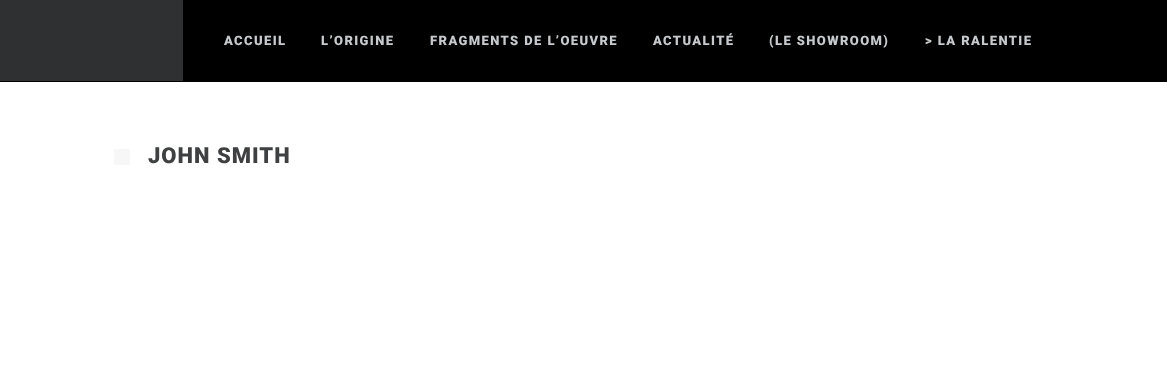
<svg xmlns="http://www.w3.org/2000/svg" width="1167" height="389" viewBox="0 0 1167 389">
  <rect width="100%" height="100%" fill="#fff"/>
  <path d="M0 0h1167v82H0z" fill="#000"/>
  <path d="M0 0h183v81H0z" fill="#2e3032"/>
  <path d="M114 149h16v16H114z" fill="#f7f7f7"/>
  <g font-family="Roboto" font-size="13" font-weight="900" letter-spacing="1.4" fill="#c7cacc">
    <text x="224" y="45">ACCUEIL</text>
    <text x="321" y="45">L’ORIGINE</text>
    <text x="430" y="45">FRAGMENTS DE L’OEUVRE</text>
    <text x="653" y="45">ACTUALITÉ</text>
    <text x="769" y="45">(LE SHOWROOM)</text>
    <text x="925" y="45">&gt; LA RALENTIE</text>
  </g>
  <text x="148" y="163" font-family="Roboto" font-size="22" font-weight="900" letter-spacing="1" fill="#3f4041">JOHN SMITH</text>
</svg>
